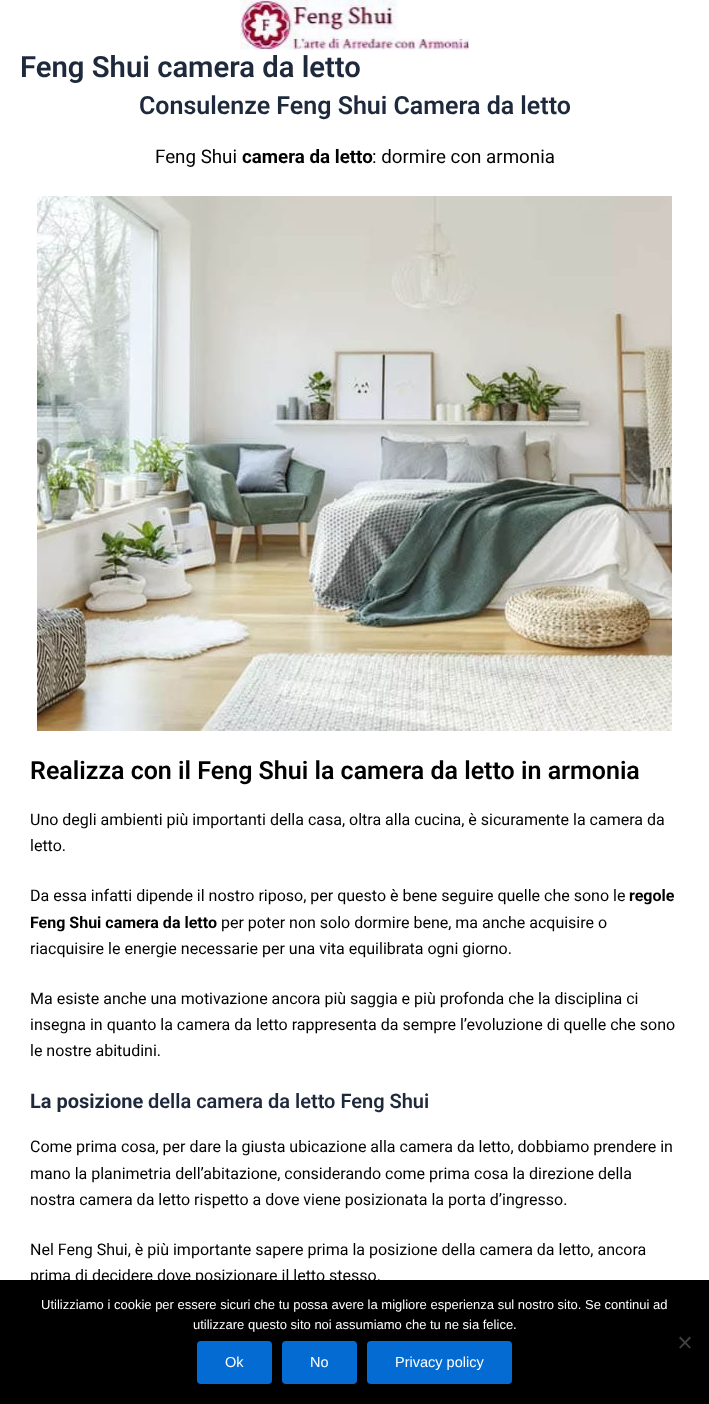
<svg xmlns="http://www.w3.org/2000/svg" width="709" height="1404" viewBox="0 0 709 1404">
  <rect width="100%" height="100%" fill="#fff"/>
  <image x="240" y="0" width="229" height="50" href="img/1.png"/>
  <image x="37" y="196" width="635" height="535" href="img/2.png"/>
  <path d="M0 1280h709v124H0z" fill="#000"/>
  <path d="M689.5 1336.5L691 1338L680.5 1348.5L679 1347.5Z" fill="#404040"/>
  <path d="M679 1338L680.5 1336.5L691 1347.5L689.5 1348.5Z" fill="#404040"/>
  <rect x="197" y="1341" width="75" height="43" rx="4" fill="#046bd2"/>
  <rect x="282" y="1341" width="75" height="43" rx="4" fill="#046bd2"/>
  <rect x="367" y="1341" width="145" height="43" rx="4" fill="#046bd2"/>
  <text x="20" y="77" font-family="Roboto" font-size="29.25" font-weight="600" fill="#1e293b">Feng Shui camera da letto</text>
  <text x="139" y="114" font-family="Roboto" font-size="25" font-weight="600" fill="#1e293b">Consulenze Feng Shui Camera da letto</text>
  <text x="155" y="163" font-family="Roboto" font-size="18.75" fill="#000">Feng Shui</text>
  <text x="242" y="163" font-family="Roboto" font-size="18.75" font-weight="bold" fill="#000">camera da letto</text>
  <text x="372" y="163" font-family="Roboto" font-size="18.75" fill="#000">: dormire con armonia</text>
  <text x="30" y="779" font-family="Roboto" font-size="25" font-weight="600" fill="#000">Realizza con il Feng Shui la camera da letto in armonia</text>
  <g font-family="Roboto" font-size="16" fill="#000">
    <text x="30" y="825">Uno degli ambienti più importanti della casa, oltra alla cucina, è sicuramente la camera da</text>
    <text x="30" y="851">letto.</text>
    <text x="30" y="901">Da essa infatti dipende il nostro riposo, per questo è bene seguire quelle che sono le</text>
  </g>
  <g font-family="Roboto" font-size="16" font-weight="bold" fill="#000">
    <text x="629" y="901">regole</text>
    <text x="30" y="928">Feng Shui camera da letto</text>
  </g>
  <g font-family="Roboto" font-size="16" fill="#000">
    <text x="221" y="928">per poter non solo dormire bene, ma anche acquisire o</text>
    <text x="30" y="954">riacquisire le energie necessarie per una vita equilibrata ogni giorno.</text>
    <text x="30" y="1004">Ma esiste anche una motivazione ancora più saggia e più profonda che la disciplina ci</text>
    <text x="30" y="1030">insegna in quanto la camera da letto rappresenta da sempre l’evoluzione di quelle che sono</text>
    <text x="30" y="1056">le nostre abitudini.</text>
  </g>
  <text x="30" y="1108" font-family="Roboto" font-size="20" font-weight="bold" fill="#1e293b">La posizione</text>
  <text x="148" y="1108" font-family="Roboto" font-size="20" font-weight="600" fill="#1e293b">della camera da letto Feng Shui</text>
  <g font-family="Roboto" font-size="16" fill="#000">
    <text x="30" y="1152">Come prima cosa, per dare la giusta ubicazione alla camera da letto, dobbiamo prendere in</text>
    <text x="30" y="1179">mano la planimetria dell’abitazione, considerando come prima cosa la direzione della</text>
    <text x="30" y="1205">nostra camera da letto rispetto a dove viene posizionata la porta d’ingresso.</text>
    <text x="30" y="1255">Nel Feng Shui, è più importante sapere prima la posizione della camera da letto, ancora</text>
    <text x="30" y="1281">prima di decidere dove posizionare il letto stesso.</text>
  </g>
  <g font-family="Liberation Sans" font-size="13" fill="#fff">
    <text x="41" y="1309">Utilizziamo i cookie per essere sicuri che tu possa avere la migliore esperienza sul nostro sito. Se continui ad</text>
    <text x="193" y="1329">utilizzare questo sito noi assumiamo che tu ne sia felice.</text>
  </g>
  <g font-family="Liberation Sans" font-size="14.5" fill="#fff">
    <text x="225" y="1367">Ok</text>
    <text x="310" y="1367">No</text>
    <text x="395" y="1367">Privacy policy</text>
  </g>
</svg>
